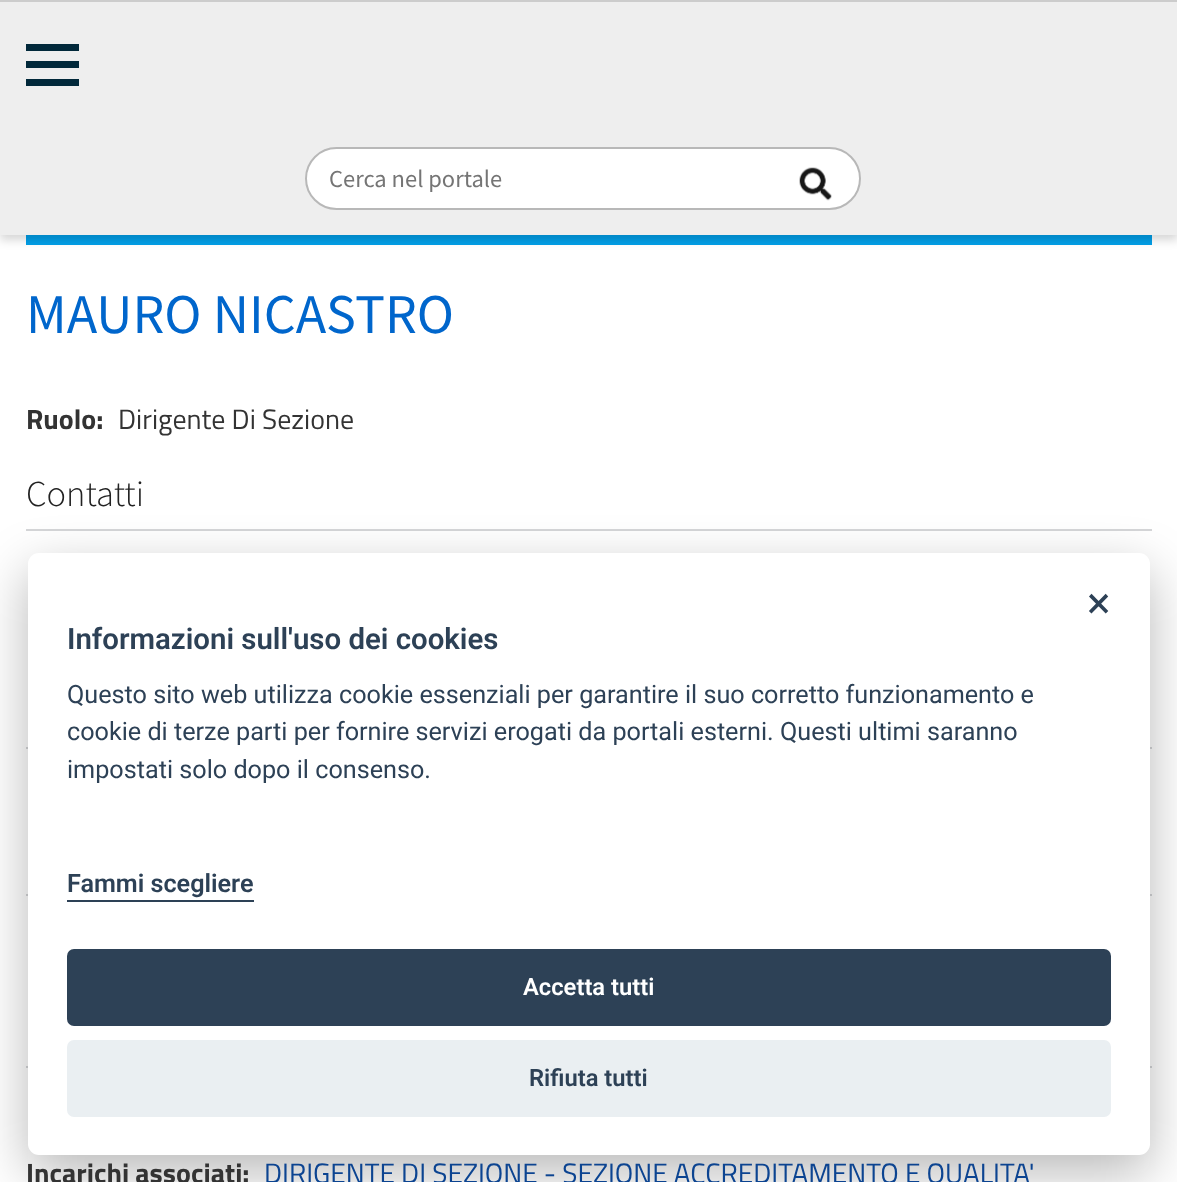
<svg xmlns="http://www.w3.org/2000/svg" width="1177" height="1182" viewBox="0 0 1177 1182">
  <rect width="100%" height="100%" fill="#fff"/>
  <path d="M26 235h1126v10H26z" fill="#029fe8"/>
  <path d="M0 5h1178v235H0z" fill="#00000029" filter="blur(5px)"/>
  <path d="M0 2h1177v233H0z" fill="#eee"/>
  <path d="M26 44h53v7H26z" fill="#01283a"/>
  <path d="M26 61h53v7H26z" fill="#01283a"/>
  <path d="M26 79h53v7H26z" fill="#01283a"/>
  <path d="M0 0h1177v2H0z" fill="#ccc"/>
  <rect x="306" y="148" width="554" height="61" rx="30.5" fill="#fff" stroke="#b8b8b8" stroke-width="2"/>
  <image x="799" y="167" width="33" height="34" href="img/1.png"/>
  <path d="M26 529h1126v2H26z" fill="#d5d6d8"/>
  <path d="M26 747h1126v2H26z" fill="#d5d6d8"/>
  <path d="M26 894h1126v2H26z" fill="#d5d6d8"/>
  <path d="M26 1066h1126v2H26z" fill="#d5d6d8"/>
  <rect x="28" y="571" width="1122" height="602" rx="11" fill="#02020347" filter="blur(26px)"/>
  <rect x="28" y="553" width="1122" height="602" rx="11" fill="#fff"/>
  <path d="M67 900h187v2H67z" fill="#2d4156"/>
  <rect x="67" y="949" width="1044" height="77" rx="7" fill="#2d4156"/>
  <rect x="67" y="1040" width="1044" height="77" rx="7" fill="#eaeff2"/>
  <text x="329" y="187" font-family="Source Sans Pro" font-size="24.5" fill="#757575">Cerca nel portale</text>
  <text x="26" y="333" font-family="Source Sans Pro" font-size="56" fill="#06c">MAURO NICASTRO</text>
  <text x="26" y="429" font-family="Titillium Web" font-size="28" font-weight="bold" fill="#333">Ruolo:</text>
  <text x="118" y="429" font-family="Titillium Web" font-size="28" fill="#333">Dirigente Di Sezione</text>
  <text x="26" y="506" font-family="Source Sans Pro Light" font-size="36.5" font-weight="300" fill="#222">Contatti</text>
  <text x="26" y="1183" font-family="Titillium Web" font-size="28" font-weight="bold" fill="#333">Incarichi associati:</text>
  <text x="264" y="1183" font-family="Titillium Web" font-size="28" fill="#0c4491">DIRIGENTE DI SEZIONE - SEZIONE ACCREDITAMENTO E QUALITA'</text>
  <text x="1087" y="618" font-family="Roboto" font-size="44" fill="#2d4156">×</text>
  <text x="67" y="649" font-family="Roboto" font-size="29.4" font-weight="600" fill="#2d4156">Informazioni sull'uso dei cookies</text>
  <g font-family="Roboto" font-size="25.2" fill="#2d4156">
    <text x="67" y="703">Questo sito web utilizza cookie essenziali per garantire il suo corretto funzionamento e</text>
    <text x="67" y="740">cookie di terze parti per fornire servizi erogati da portali esterni. Questi ultimi saranno</text>
    <text x="67" y="778">impostati solo dopo il consenso.</text>
  </g>
  <text x="67" y="892" font-family="Roboto" font-size="25.2" font-weight="600" fill="#2d4156">Fammi scegliere</text>
  <text x="523" y="995" font-family="Roboto" font-size="23.75" font-weight="600" fill="#fff">Accetta tutti</text>
  <text x="529" y="1086" font-family="Roboto" font-size="23.75" font-weight="600" fill="#2d4156">Rifiuta tutti</text>
</svg>
